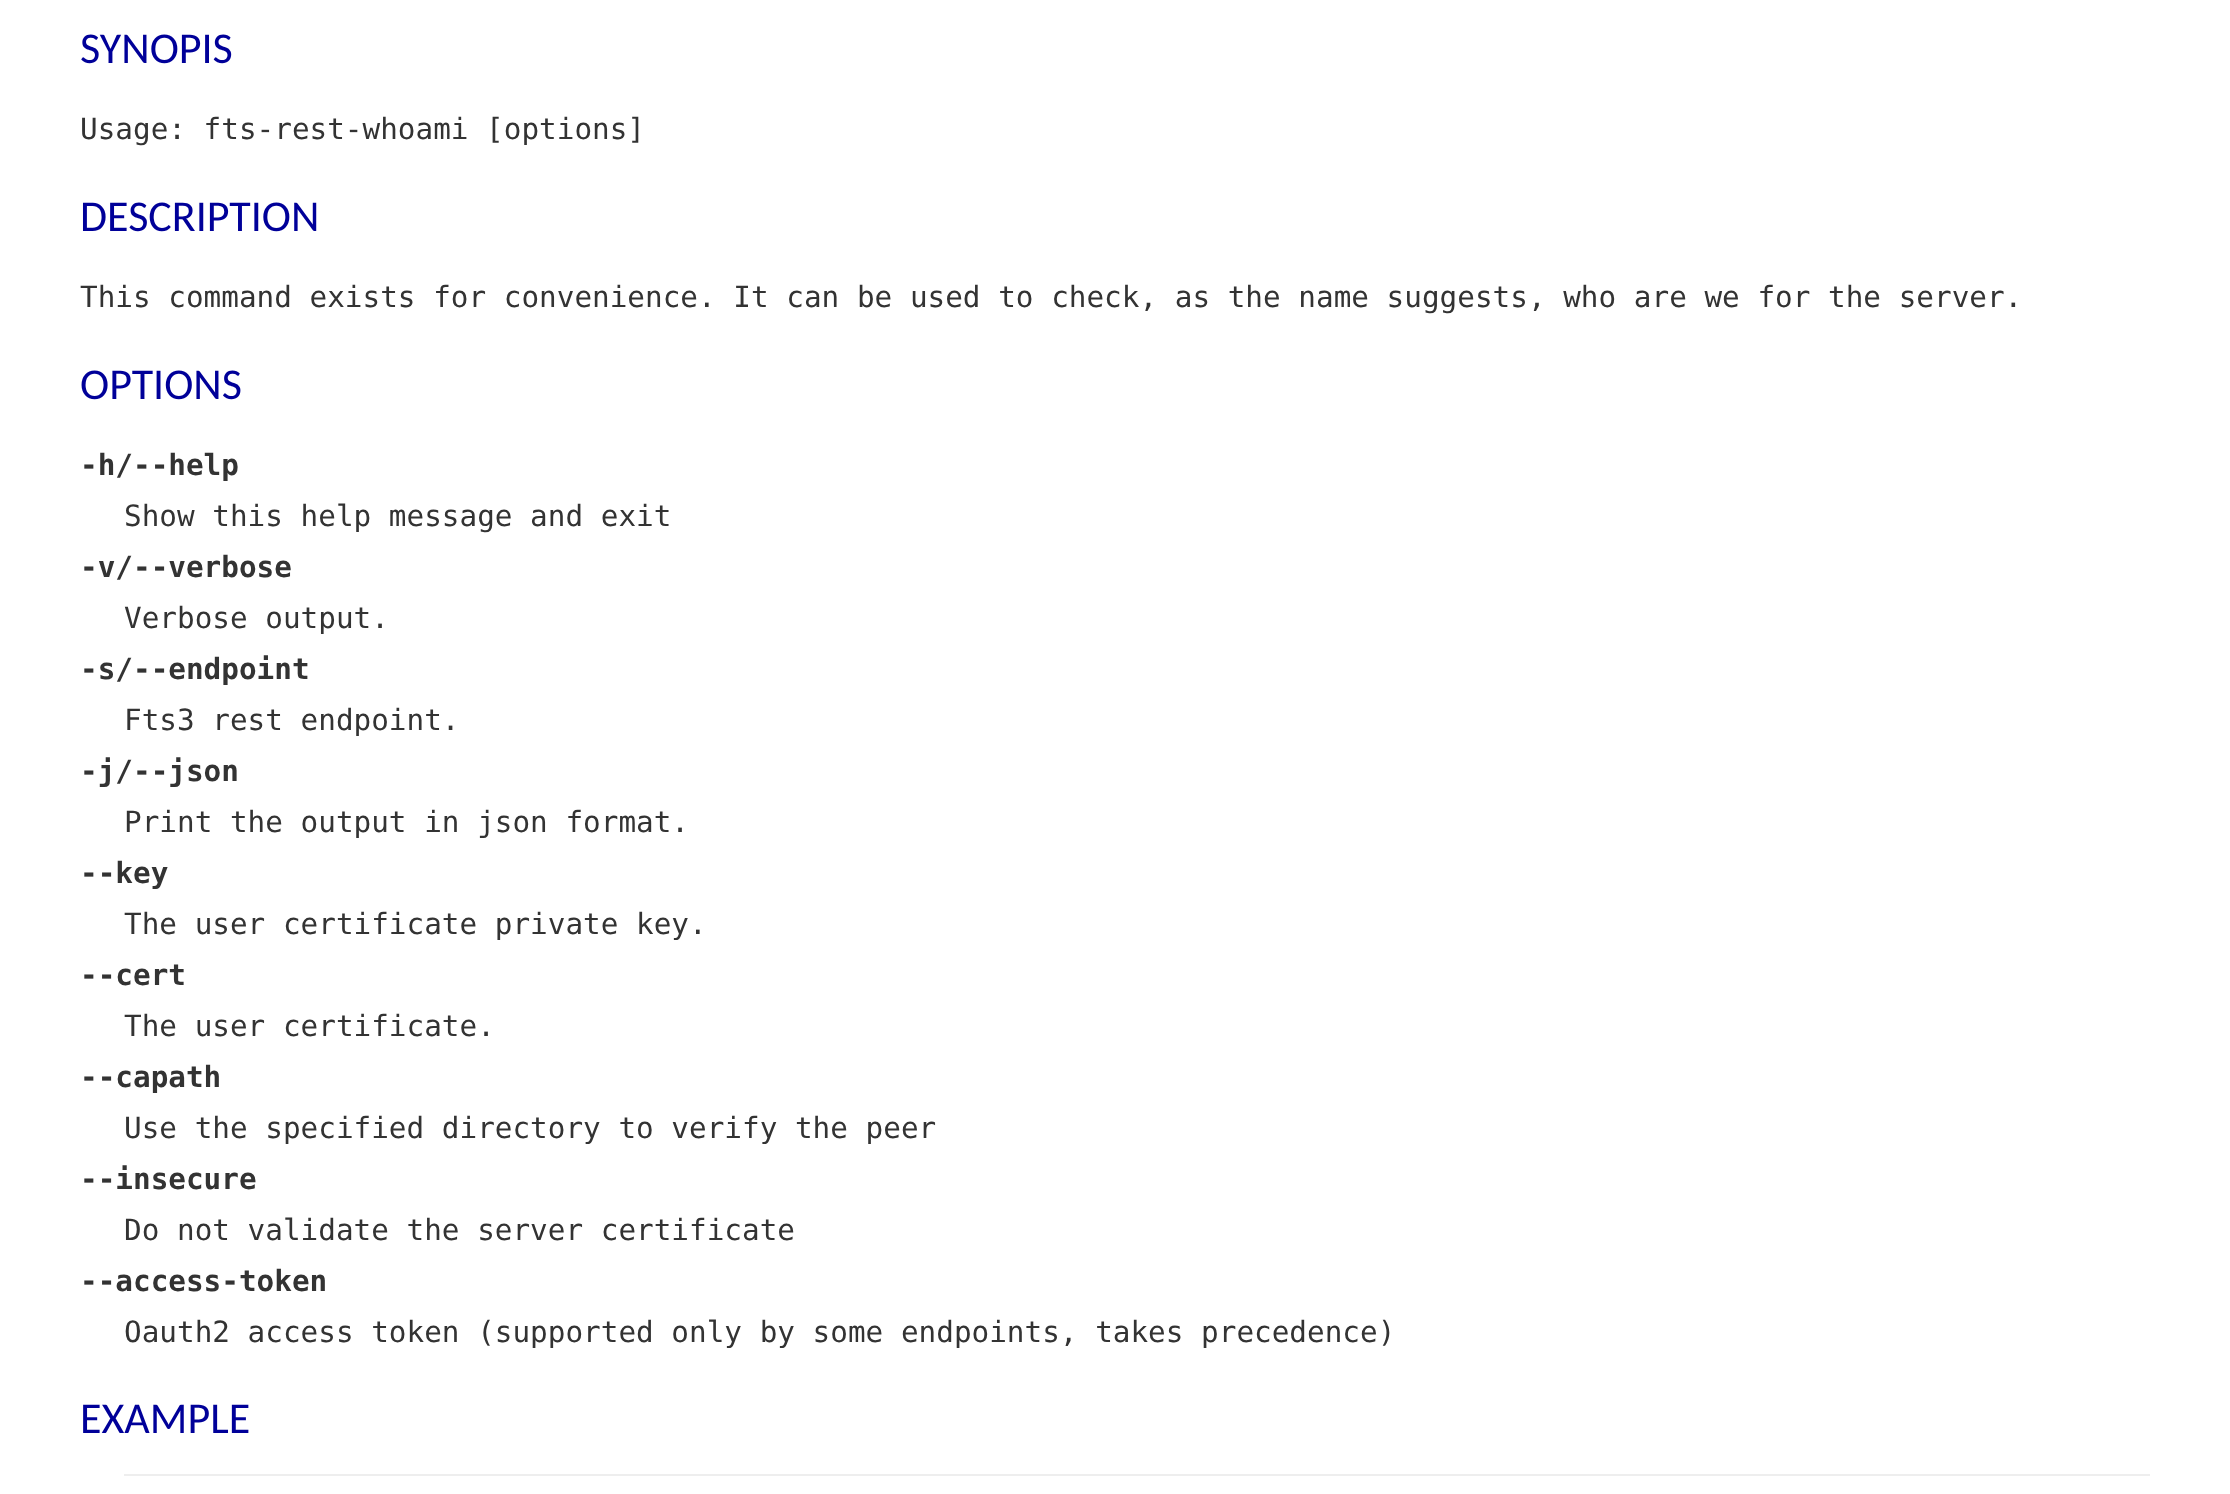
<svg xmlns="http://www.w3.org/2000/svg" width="2230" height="1494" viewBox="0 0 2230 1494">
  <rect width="100%" height="100%" fill="#fff"/>
  <path d="M124 1474h2026v2H124z" fill="#eee"/>
  <text x="80" y="63" font-family="Carlito" font-size="44" fill="#009">SYNOPIS</text>
  <text x="80" y="139" font-family="DejaVu Sans Mono" font-size="29.33" fill="#333">Usage: fts-rest-whoami [options]</text>
  <text x="80" y="231" font-family="Carlito" font-size="44" fill="#009">DESCRIPTION</text>
  <text x="80" y="307" font-family="DejaVu Sans Mono" font-size="29.33" fill="#333">This command exists for convenience. It can be used to check, as the name suggests, who are we for the server.</text>
  <text x="80" y="399" font-family="Carlito" font-size="44" fill="#009">OPTIONS</text>
  <text x="80" y="475" font-family="DejaVu Sans Mono" font-size="29.33" font-weight="bold" fill="#333">-h/--help</text>
  <text x="124" y="526" font-family="DejaVu Sans Mono" font-size="29.33" fill="#333">Show this help message and exit</text>
  <text x="80" y="577" font-family="DejaVu Sans Mono" font-size="29.33" font-weight="bold" fill="#333">-v/--verbose</text>
  <text x="124" y="628" font-family="DejaVu Sans Mono" font-size="29.33" fill="#333">Verbose output.</text>
  <text x="80" y="679" font-family="DejaVu Sans Mono" font-size="29.33" font-weight="bold" fill="#333">-s/--endpoint</text>
  <text x="124" y="730" font-family="DejaVu Sans Mono" font-size="29.33" fill="#333">Fts3 rest endpoint.</text>
  <text x="80" y="781" font-family="DejaVu Sans Mono" font-size="29.33" font-weight="bold" fill="#333">-j/--json</text>
  <text x="124" y="832" font-family="DejaVu Sans Mono" font-size="29.33" fill="#333">Print the output in json format.</text>
  <text x="80" y="883" font-family="DejaVu Sans Mono" font-size="29.33" font-weight="bold" fill="#333">--key</text>
  <text x="124" y="934" font-family="DejaVu Sans Mono" font-size="29.33" fill="#333">The user certificate private key.</text>
  <text x="80" y="985" font-family="DejaVu Sans Mono" font-size="29.33" font-weight="bold" fill="#333">--cert</text>
  <text x="124" y="1036" font-family="DejaVu Sans Mono" font-size="29.33" fill="#333">The user certificate.</text>
  <text x="80" y="1087" font-family="DejaVu Sans Mono" font-size="29.33" font-weight="bold" fill="#333">--capath</text>
  <text x="124" y="1138" font-family="DejaVu Sans Mono" font-size="29.33" fill="#333">Use the specified directory to verify the peer</text>
  <text x="80" y="1189" font-family="DejaVu Sans Mono" font-size="29.33" font-weight="bold" fill="#333">--insecure</text>
  <text x="124" y="1240" font-family="DejaVu Sans Mono" font-size="29.33" fill="#333">Do not validate the server certificate</text>
  <text x="80" y="1291" font-family="DejaVu Sans Mono" font-size="29.33" font-weight="bold" fill="#333">--access-token</text>
  <text x="124" y="1342" font-family="DejaVu Sans Mono" font-size="29.33" fill="#333">Oauth2 access token (supported only by some endpoints, takes precedence)</text>
  <text x="80" y="1433" font-family="Carlito" font-size="44" fill="#009">EXAMPLE</text>
</svg>
